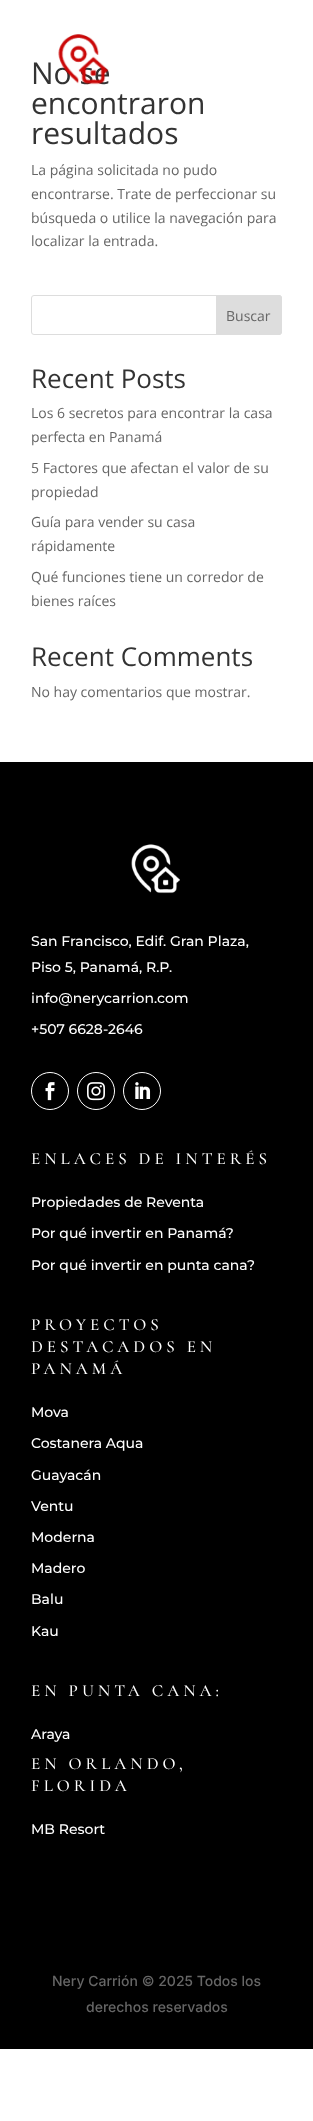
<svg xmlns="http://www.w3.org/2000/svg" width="313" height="2121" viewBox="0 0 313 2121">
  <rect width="100%" height="100%" fill="#fff"/>
  <rect x="31.5" y="295.5" width="250" height="39" rx="2.5" fill="none" stroke="#ddd"/>
  <path d="M216.5 295.5H279C280.5 295.5 281.5 296.5 281.5 298V332C281.5 333.5 280.5 334.5 279 334.5H216.5Z" fill="#ddd" stroke="#ddd"/>
  <path d="M0 762h313v1287H0z" fill="#000"/>
  <image x="131" y="844" width="49" height="50" href="img/2.png"/>
  <circle cx="50" cy="1091" r="18.5" fill="none" stroke="#fff"/>
  <image x="45" y="1082" width="10" height="19" href="img/3.png"/>
  <circle cx="96" cy="1091" r="18.5" fill="none" stroke="#fff"/>
  <image x="87" y="1082" width="18" height="19" href="img/4.png"/>
  <circle cx="142" cy="1091" r="18.5" fill="none" stroke="#fff"/>
  <image x="135" y="1082" width="16" height="17" href="img/5.png"/>
  <text x="31" y="84" font-family="Open Sans" font-size="30" fill="#333">No se</text>
  <image x="58" y="34" width="51" height="51" href="img/1.png"/>
  <g font-family="Open Sans" font-size="30" fill="#333">
    <text x="31" y="114">encontraron</text>
    <text x="31" y="144">resultados</text>
  </g>
  <g font-family="Open Sans" font-size="14" fill="#666">
    <text x="31" y="175">La página solicitada no pudo</text>
    <text x="31" y="199">encontrarse. Trate de perfeccionar su</text>
    <text x="31" y="223">búsqueda o utilice la navegación para</text>
    <text x="31" y="246">localizar la entrada.</text>
    <text x="226" y="321">Buscar</text>
  </g>
  <text x="31" y="388" font-family="Open Sans" font-size="26" fill="#333">Recent Posts</text>
  <g font-family="Open Sans" font-size="14" fill="#666">
    <text x="31" y="418">Los 6 secretos para encontrar la casa</text>
    <text x="31" y="442">perfecta en Panamá</text>
    <text x="31" y="473">5 Factores que afectan el valor de su</text>
    <text x="31" y="497">propiedad</text>
    <text x="31" y="527">Guía para vender su casa</text>
    <text x="31" y="551">rápidamente</text>
    <text x="31" y="582">Qué funciones tiene un corredor de</text>
    <text x="31" y="606">bienes raíces</text>
  </g>
  <text x="31" y="666" font-family="Open Sans" font-size="26" fill="#333">Recent Comments</text>
  <text x="31" y="697" font-family="Open Sans" font-size="14" fill="#666">No hay comentarios que mostrar.</text>
  <g font-family="Montserrat" font-size="14" font-weight="500" fill="#fff">
    <text x="31" y="946">San Francisco, Edif. Gran Plaza,</text>
    <text x="31" y="972">Piso 5, Panamá, R.P.</text>
    <text x="31" y="1003">info@nerycarrion.com</text>
    <text x="31" y="1034">+507 6628-2646</text>
  </g>
  <text x="31" y="1164" font-family="Cormorant" font-size="17" font-weight="500" letter-spacing="4" fill="#fff">ENLACES DE INTERÉS</text>
  <g font-family="Montserrat" font-size="14" font-weight="500" fill="#fff">
    <text x="31" y="1207">Propiedades de Reventa</text>
    <text x="31" y="1238">Por qué invertir en Panamá?</text>
    <text x="31" y="1270">Por qué invertir en punta cana?</text>
  </g>
  <g font-family="Cormorant" font-size="17" font-weight="500" letter-spacing="4" fill="#fff">
    <text x="31" y="1330">PROYECTOS</text>
    <text x="31" y="1352">DESTACADOS EN</text>
    <text x="31" y="1374">PANAMÁ</text>
  </g>
  <g font-family="Montserrat" font-size="14" font-weight="500" fill="#fff">
    <text x="31" y="1417">Mova</text>
    <text x="31" y="1448">Costanera Aqua</text>
    <text x="31" y="1480">Guayacán</text>
    <text x="31" y="1511">Ventu</text>
    <text x="31" y="1542">Moderna</text>
    <text x="31" y="1573">Madero</text>
    <text x="31" y="1604">Balu</text>
    <text x="31" y="1636">Kau</text>
  </g>
  <text x="31" y="1696" font-family="Cormorant" font-size="17" font-weight="500" letter-spacing="4" fill="#fff">EN PUNTA CANA:</text>
  <text x="31" y="1739" font-family="Montserrat" font-size="14" font-weight="500" fill="#fff">Araya</text>
  <g font-family="Cormorant" font-size="17" font-weight="500" letter-spacing="4" fill="#fff">
    <text x="31" y="1769">EN ORLANDO,</text>
    <text x="31" y="1791">FLORIDA</text>
  </g>
  <text x="31" y="1834" font-family="Montserrat" font-size="14" font-weight="500" fill="#fff">MB Resort</text>
  <g font-family="Inter" font-size="14" font-weight="500" fill="#666">
    <text x="52" y="1986">Nery Carrión © 2025 Todos los</text>
    <text x="86" y="2012">derechos reservados</text>
  </g>
</svg>
